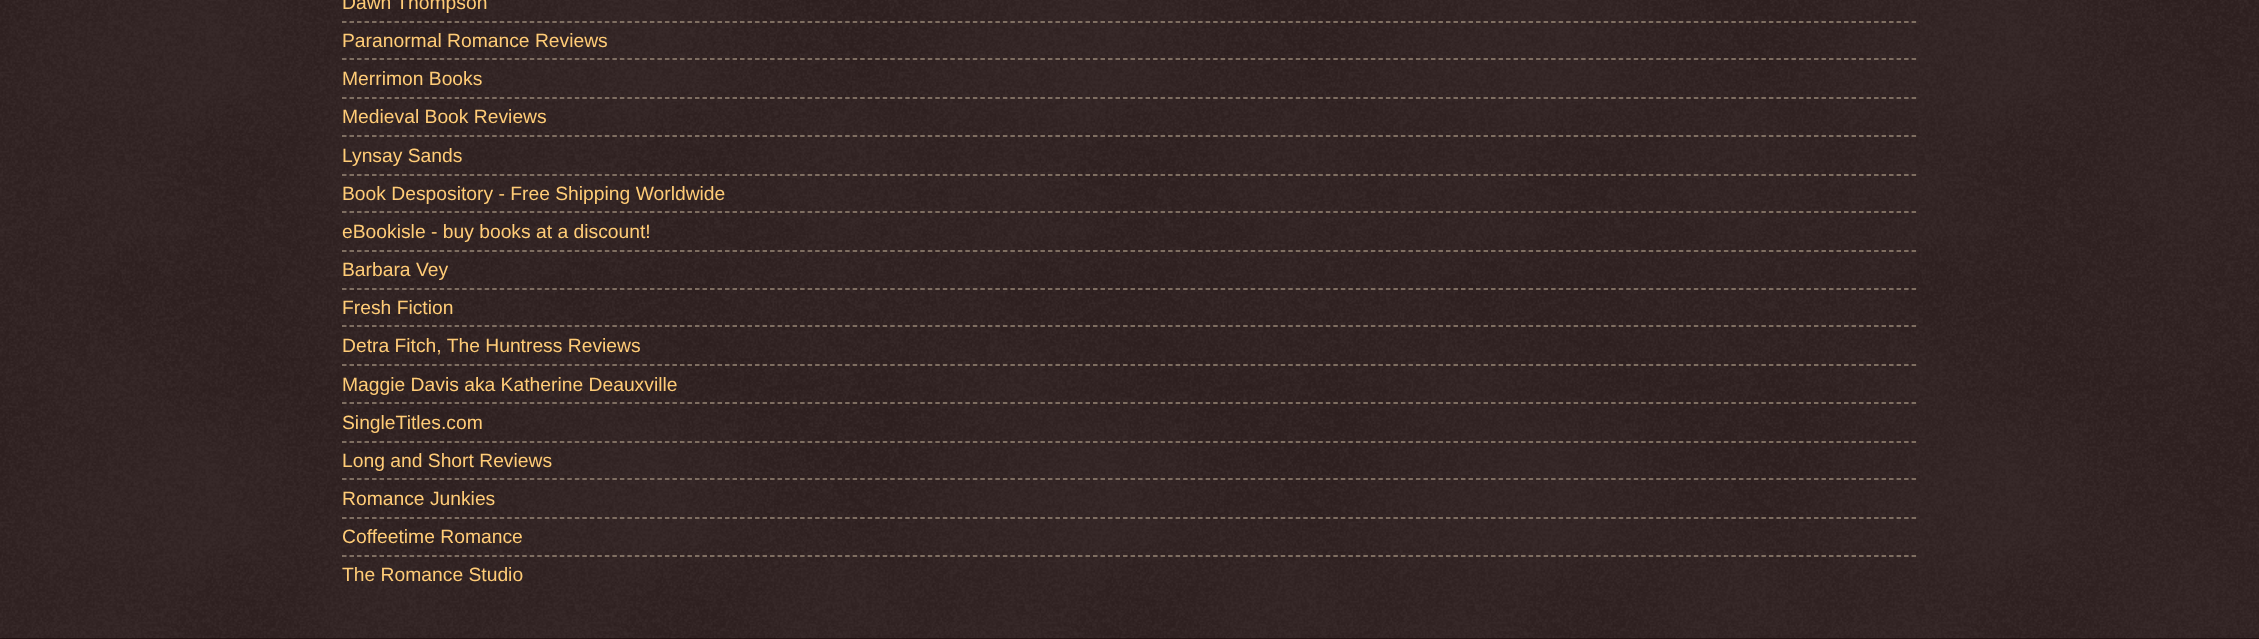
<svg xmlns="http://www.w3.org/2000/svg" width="2259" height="639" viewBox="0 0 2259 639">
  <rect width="100%" height="100%" fill="#100"/>
  <image x="0" y="0" width="2259" height="639" href="img/1.png"/>
  <path d="M342 22H1917" fill="none" stroke="#987" stroke-width="1.5" stroke-dasharray="4.5 3.01"/>
  <path d="M342 59H1917" fill="none" stroke="#987" stroke-width="1.5" stroke-dasharray="4.5 3.01"/>
  <path d="M342 98H1917" fill="none" stroke="#987" stroke-width="1.5" stroke-dasharray="4.5 3.01"/>
  <path d="M342 136H1917" fill="none" stroke="#987" stroke-width="1.5" stroke-dasharray="4.5 3.01"/>
  <path d="M342 175H1917" fill="none" stroke="#987" stroke-width="1.5" stroke-dasharray="4.5 3.01"/>
  <path d="M342 212H1917" fill="none" stroke="#987" stroke-width="1.5" stroke-dasharray="4.5 3.01"/>
  <path d="M342 251H1917" fill="none" stroke="#987" stroke-width="1.5" stroke-dasharray="4.5 3.01"/>
  <path d="M342 289H1917" fill="none" stroke="#987" stroke-width="1.5" stroke-dasharray="4.5 3.01"/>
  <path d="M342 326H1917" fill="none" stroke="#987" stroke-width="1.5" stroke-dasharray="4.5 3.01"/>
  <path d="M342 365H1917" fill="none" stroke="#987" stroke-width="1.5" stroke-dasharray="4.5 3.01"/>
  <path d="M342 403H1917" fill="none" stroke="#987" stroke-width="1.5" stroke-dasharray="4.5 3.01"/>
  <path d="M342 442H1917" fill="none" stroke="#987" stroke-width="1.5" stroke-dasharray="4.5 3.01"/>
  <path d="M342 479H1917" fill="none" stroke="#987" stroke-width="1.5" stroke-dasharray="4.5 3.01"/>
  <path d="M342 518H1917" fill="none" stroke="#987" stroke-width="1.5" stroke-dasharray="4.5 3.01"/>
  <path d="M342 556H1917" fill="none" stroke="#987" stroke-width="1.5" stroke-dasharray="4.5 3.01"/>
  <g font-family="Liberation Sans" font-size="19.3" fill="#fc7">
    <text x="342" y="9">Dawn Thompson</text>
    <text x="342" y="47">Paranormal Romance Reviews</text>
    <text x="342" y="85">Merrimon Books</text>
    <text x="342" y="123">Medieval Book Reviews</text>
    <text x="342" y="162">Lynsay Sands</text>
    <text x="342" y="200">Book Despository - Free Shipping Worldwide</text>
    <text x="342" y="238">eBookisle - buy books at a discount!</text>
    <text x="342" y="276">Barbara Vey</text>
    <text x="342" y="314">Fresh Fiction</text>
    <text x="342" y="352">Detra Fitch, The Huntress Reviews</text>
    <text x="342" y="391">Maggie Davis aka Katherine Deauxville</text>
    <text x="342" y="429">SingleTitles.com</text>
    <text x="342" y="467">Long and Short Reviews</text>
    <text x="342" y="505">Romance Junkies</text>
    <text x="342" y="543">Coffeetime Romance</text>
    <text x="342" y="581">The Romance Studio</text>
  </g>
</svg>
